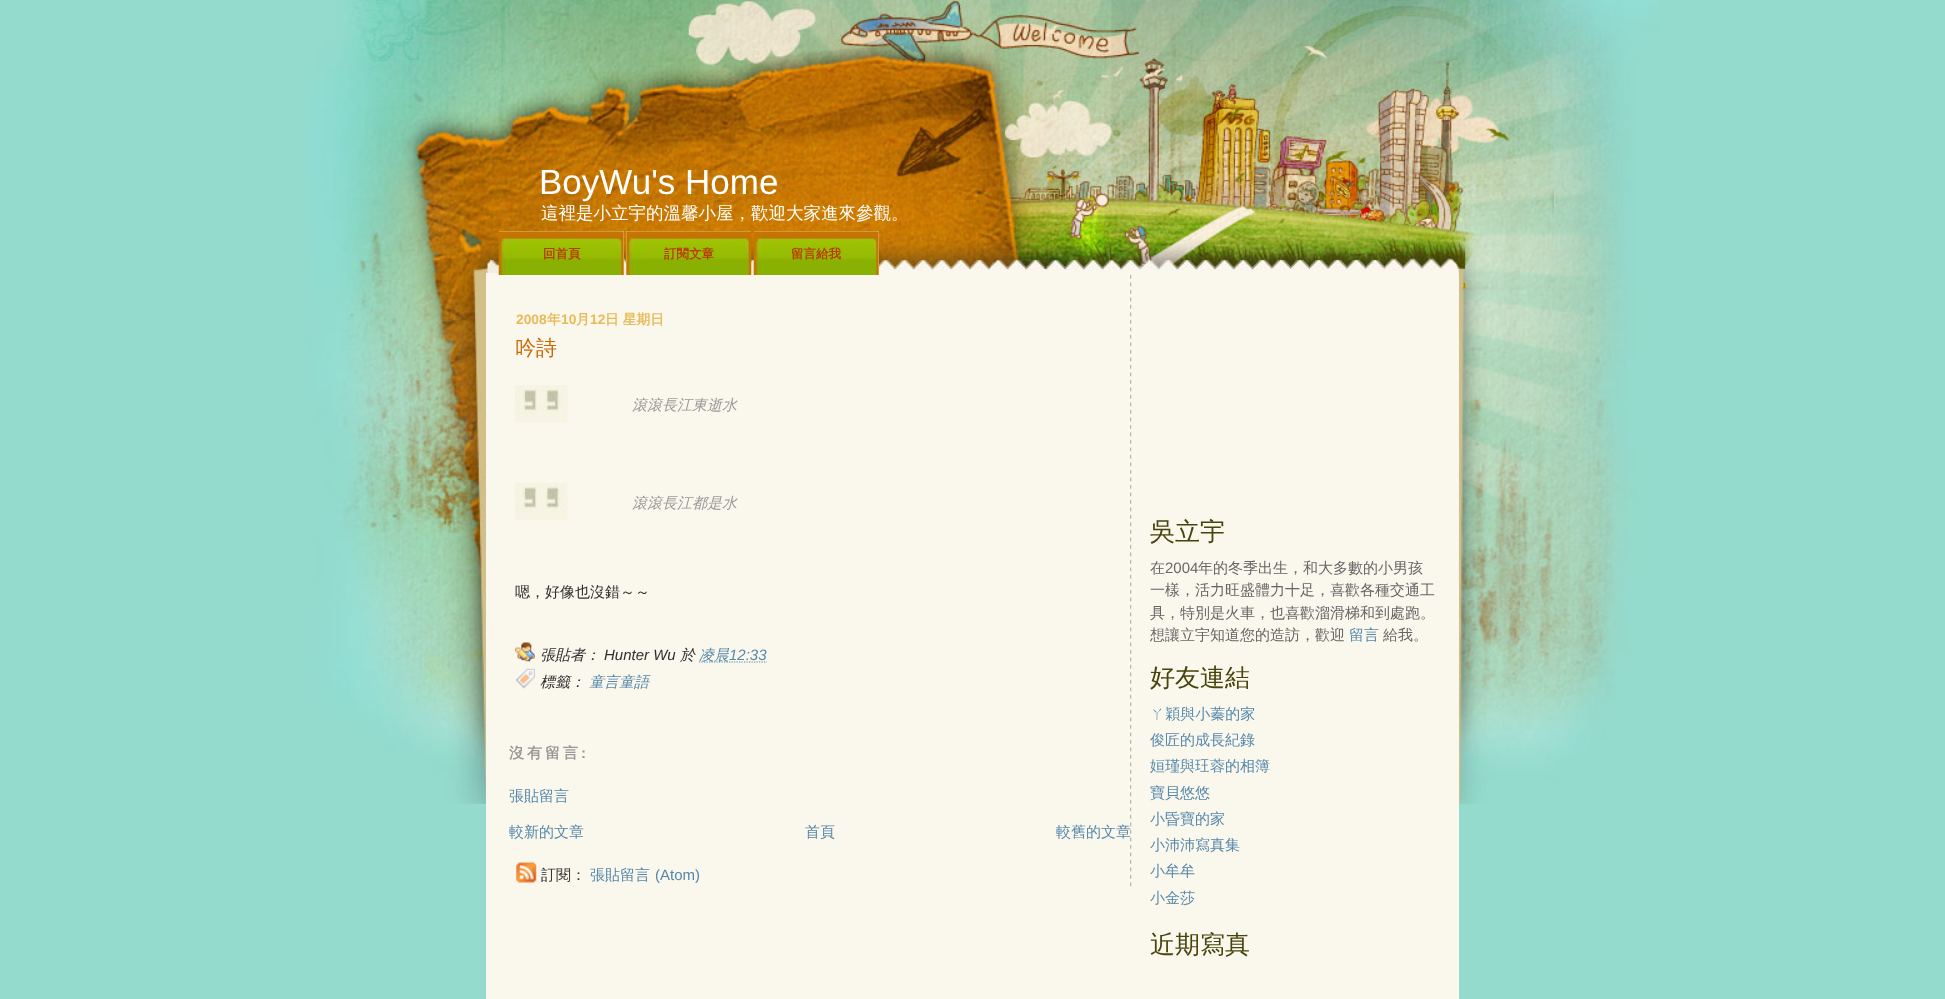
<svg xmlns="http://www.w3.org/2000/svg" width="1945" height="999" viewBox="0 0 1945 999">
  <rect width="100%" height="100%" fill="#94dbcd"/>
  <image x="307" y="0" width="1353" height="804" href="img/1.png"/>
  <path d="M486 273h973v726H486z" fill="#faf7ed"/>
  <path d="M499 231h125v44H499z" fill="#fff"/>
  <image x="498" y="231" width="126" height="44" href="img/2.png"/>
  <path d="M626 231h125v44H626z" fill="#fff"/>
  <image x="626" y="231" width="126" height="44" href="img/3.png"/>
  <path d="M754 231h125v44H754z" fill="#fff"/>
  <image x="753" y="231" width="126" height="44" href="img/4.png"/>
  <image x="1130" y="275" width="2" height="612" href="img/5.png"/>
  <image x="515" y="385" width="53" height="38" href="img/6.png"/>
  <image x="515" y="482" width="53" height="38" href="img/7.png"/>
  <image x="515" y="642" width="20" height="20" href="img/8.png"/>
  <path d="M699 662H767" fill="none" stroke="#58a" stroke-width="1.2" stroke-dasharray="1.25 1.25"/>
  <image x="515" y="668" width="20" height="21" href="img/9.png"/>
  <image x="516" y="862" width="21" height="21" href="img/10.png"/>
  <text x="539" y="194" font-family="Liberation Sans" font-size="35" fill="#fff">BoyWu's Home</text>
  <text x="541" y="219" font-family="WenQuanYi Zen Hei" font-size="17.5" font-weight="500" fill="#fff">這裡是小立宇的溫馨小屋，歡迎大家進來參觀。</text>
  <g font-family="WenQuanYi Zen Hei" font-size="12.5" font-weight="bold" fill="#bb3807">
    <text x="543" y="258">回首頁</text>
    <text x="664" y="258">訂閱文章</text>
    <text x="791" y="258">留言給我</text>
  </g>
  <text x="516" y="324" font-family="Liberation Sans" font-size="13.75" font-weight="bold" fill="#e8ba58">2008</text>
  <text x="547" y="324" font-family="WenQuanYi Zen Hei" font-size="13.75" font-weight="bold" fill="#e8ba58">年</text>
  <text x="561" y="324" font-family="Liberation Sans" font-size="13.75" font-weight="bold" fill="#e8ba58">10</text>
  <text x="576" y="324" font-family="WenQuanYi Zen Hei" font-size="13.75" font-weight="bold" fill="#e8ba58">月</text>
  <text x="590" y="324" font-family="Liberation Sans" font-size="13.75" font-weight="bold" fill="#e8ba58">12</text>
  <text x="605" y="324" font-family="WenQuanYi Zen Hei" font-size="13.75" font-weight="bold" fill="#e8ba58">日 星期日</text>
  <text x="515" y="355" font-family="WenQuanYi Zen Hei" font-size="21" font-weight="500" fill="#c60">吟詩</text>
  <g font-family="WenQuanYi Zen Hei" font-size="15" font-weight="500" font-style="italic" fill="#999">
    <text x="632" y="410">滾滾長江東逝水</text>
    <text x="632" y="508">滾滾長江都是水</text>
  </g>
  <text x="515" y="597" font-family="WenQuanYi Zen Hei" font-size="15" font-weight="500" fill="#2f2f2f">嗯，好像也沒錯～～</text>
  <text x="540" y="660" font-family="WenQuanYi Zen Hei" font-size="15" font-weight="500" font-style="italic" fill="#2f2f2f">張貼者：</text>
  <text x="604" y="660" font-family="Liberation Sans" font-size="15" font-style="italic" fill="#2f2f2f">Hunter Wu</text>
  <text x="680" y="660" font-family="WenQuanYi Zen Hei" font-size="15" font-weight="500" font-style="italic" fill="#2f2f2f">於</text>
  <text x="699" y="660" font-family="WenQuanYi Zen Hei" font-size="15" font-weight="500" font-style="italic" fill="#58a">凌晨</text>
  <text x="729" y="660" font-family="Liberation Sans" font-size="15" font-style="italic" fill="#58a">12:33</text>
  <text x="540" y="687" font-family="WenQuanYi Zen Hei" font-size="15" font-weight="500" font-style="italic" fill="#2f2f2f">標籤：</text>
  <text x="589" y="687" font-family="WenQuanYi Zen Hei" font-size="15" font-weight="500" font-style="italic" fill="#58a">童言童語</text>
  <text x="509" y="758" font-family="WenQuanYi Zen Hei" font-size="15" font-weight="bold" letter-spacing="3" fill="#999">沒有留言</text>
  <text x="581" y="758" font-family="Liberation Sans" font-size="15" font-weight="bold" letter-spacing="3" fill="#999">:</text>
  <g font-family="WenQuanYi Zen Hei" font-size="15" font-weight="500" fill="#58a">
    <text x="509" y="801">張貼留言</text>
    <text x="509" y="837">較新的文章</text>
    <text x="805" y="837">首頁</text>
    <text x="1056" y="837">較舊的文章</text>
  </g>
  <text x="541" y="880" font-family="WenQuanYi Zen Hei" font-size="15" font-weight="500" fill="#2f2f2f">訂閱：</text>
  <text x="590" y="880" font-family="WenQuanYi Zen Hei" font-size="15" font-weight="500" fill="#58a">張貼留言</text>
  <text x="655" y="880" font-family="Liberation Sans" font-size="15" fill="#58a">(Atom)</text>
  <text x="1150" y="540" font-family="WenQuanYi Zen Hei" font-size="25" font-weight="500" fill="#47450b">吳立宇</text>
  <text x="1150" y="573" font-family="WenQuanYi Zen Hei" font-size="15" font-weight="500" fill="#666">在</text>
  <text x="1165" y="573" font-family="Liberation Sans" font-size="15" fill="#666">2004</text>
  <g font-family="WenQuanYi Zen Hei" font-size="15" font-weight="500" fill="#666">
    <text x="1198" y="573">年的冬季出生，和大多數的小男孩</text>
    <text x="1150" y="595">一樣，活力旺盛體力十足，喜歡各種交通工</text>
    <text x="1150" y="618">具，特別是火車，也喜歡溜滑梯和到處跑。</text>
    <text x="1150" y="640">想讓立宇知道您的造訪，歡迎</text>
  </g>
  <text x="1349" y="640" font-family="WenQuanYi Zen Hei" font-size="15" font-weight="500" fill="#58a">留言</text>
  <text x="1383" y="640" font-family="WenQuanYi Zen Hei" font-size="15" font-weight="500" fill="#666">給我。</text>
  <text x="1150" y="686" font-family="WenQuanYi Zen Hei" font-size="25" font-weight="500" fill="#47450b">好友連結</text>
  <g font-family="WenQuanYi Zen Hei" font-size="15" font-weight="500" fill="#58a">
    <text x="1150" y="719">ㄚ穎與小蓁的家</text>
    <text x="1150" y="745">俊匠的成長紀錄</text>
    <text x="1150" y="771">姮瑾與玨蓉的相簿</text>
    <text x="1150" y="798">寶貝悠悠</text>
    <text x="1150" y="824">小昏寶的家</text>
    <text x="1150" y="850">小沛沛寫真集</text>
    <text x="1150" y="876">小牟牟</text>
    <text x="1150" y="903">小金莎</text>
  </g>
  <text x="1150" y="953" font-family="WenQuanYi Zen Hei" font-size="25" font-weight="500" fill="#47450b">近期寫真</text>
</svg>
